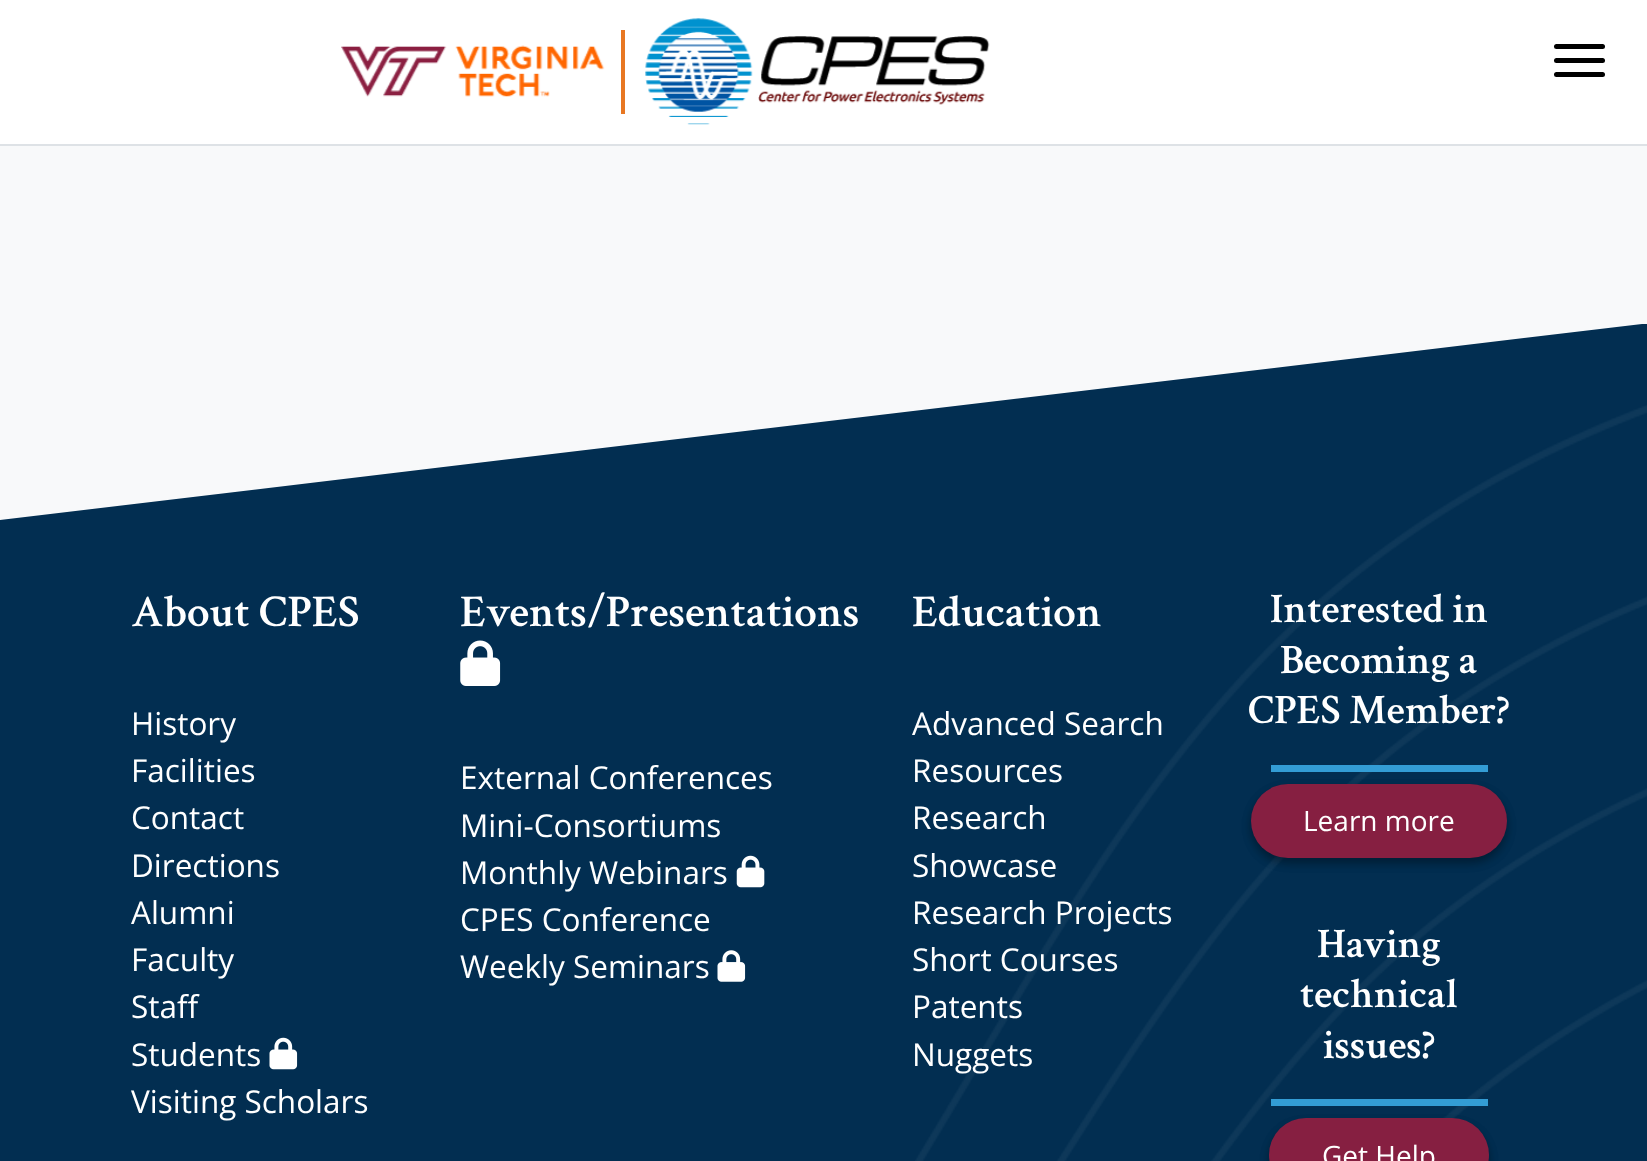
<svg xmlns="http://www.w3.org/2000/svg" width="1647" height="1161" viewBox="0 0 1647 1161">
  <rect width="100%" height="100%" fill="#f8f9fa"/>
  <path d="M0 0h1647v144H0z" fill="#fff"/>
  <path d="M0 144h1647v2H0z" fill="#dee2e6"/>
  <image x="341" y="45" width="264" height="52" href="img/1.png"/>
  <path d="M621 30h4v84H621z" fill="#e87722"/>
  <image x="645" y="18" width="345" height="107" href="img/2.png"/>
  <rect x="1554" y="44" width="51" height="5" rx="2.5" fill="#000"/>
  <rect x="1554" y="58" width="51" height="5" rx="2.5" fill="#000"/>
  <rect x="1554" y="72" width="51" height="5" rx="2.5" fill="#000"/>
  <path d="M0 520V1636H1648V324H1642Z" fill="#022e51"/>
  <image x="915" y="405" width="732" height="756" href="img/3.png"/>
  <image x="269" y="1037" width="29" height="33" href="img/4.png"/>
  <image x="460" y="640" width="41" height="46" href="img/5.png"/>
  <image x="736" y="855" width="29" height="33" href="img/6.png"/>
  <image x="717" y="950" width="29" height="32" href="img/7.png"/>
  <path d="M1271 765h217v7H1271z" fill="#339dd5"/>
  <rect x="1251" y="789" width="256" height="74" rx="37" fill="#0000003b" filter="blur(5px)"/>
  <rect x="1251" y="789" width="256" height="74" rx="37" fill="#00000029" filter="blur(5px)"/>
  <rect x="1251" y="784" width="256" height="74" rx="37" fill="#861f41"/>
  <path d="M1271 1099h217v7H1271z" fill="#339dd5"/>
  <rect x="1269" y="1124" width="220" height="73" rx="36.5" fill="#0000003b" filter="blur(5px)"/>
  <rect x="1269" y="1124" width="220" height="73" rx="36.5" fill="#00000029" filter="blur(5px)"/>
  <rect x="1269" y="1118" width="220" height="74" rx="37" fill="#861f41"/>
  <text x="131" y="626" font-family="Crimson Text" font-size="45.5" font-weight="600" fill="#fff">About CPES</text>
  <g font-family="Open Sans" font-size="31.5" fill="#fff">
    <text x="131" y="735">History</text>
    <text x="131" y="782">Facilities</text>
    <text x="131" y="829">Contact</text>
    <text x="131" y="877">Directions</text>
    <text x="131" y="924">Alumni</text>
    <text x="131" y="971">Faculty</text>
    <text x="131" y="1018">Staff</text>
    <text x="131" y="1066">Students</text>
    <text x="131" y="1113">Visiting Scholars</text>
  </g>
  <text x="460" y="626" font-family="Crimson Text" font-size="45.5" font-weight="600" fill="#fff">Events/Presentations</text>
  <g font-family="Open Sans" font-size="31.5" fill="#fff">
    <text x="460" y="789">External Conferences</text>
    <text x="460" y="837">Mini-Consortiums</text>
    <text x="460" y="884">Monthly Webinars</text>
    <text x="460" y="931">CPES Conference</text>
    <text x="460" y="978">Weekly Seminars</text>
  </g>
  <text x="912" y="626" font-family="Crimson Text" font-size="45.5" font-weight="600" fill="#fff">Education</text>
  <g font-family="Open Sans" font-size="31.5" fill="#fff">
    <text x="912" y="735">Advanced Search</text>
    <text x="912" y="782">Resources</text>
    <text x="912" y="829">Research</text>
    <text x="912" y="877">Showcase</text>
    <text x="912" y="924">Research Projects</text>
    <text x="912" y="971">Short Courses</text>
    <text x="912" y="1018">Patents</text>
    <text x="912" y="1066">Nuggets</text>
  </g>
  <g font-family="Crimson Text" font-size="42" font-weight="600" fill="#fff">
    <text x="1270" y="622">Interested in</text>
    <text x="1280" y="673">Becoming a</text>
    <text x="1248" y="723">CPES Member?</text>
  </g>
  <text x="1303" y="831" font-family="Open Sans" font-size="28" fill="#fff">Learn more</text>
  <g font-family="Crimson Text" font-size="42" font-weight="600" fill="#fff">
    <text x="1317" y="957">Having</text>
    <text x="1300" y="1007">technical</text>
    <text x="1323" y="1058">issues?</text>
  </g>
  <text x="1322" y="1166" font-family="Open Sans" font-size="28" fill="#fff">Get Help</text>
</svg>
